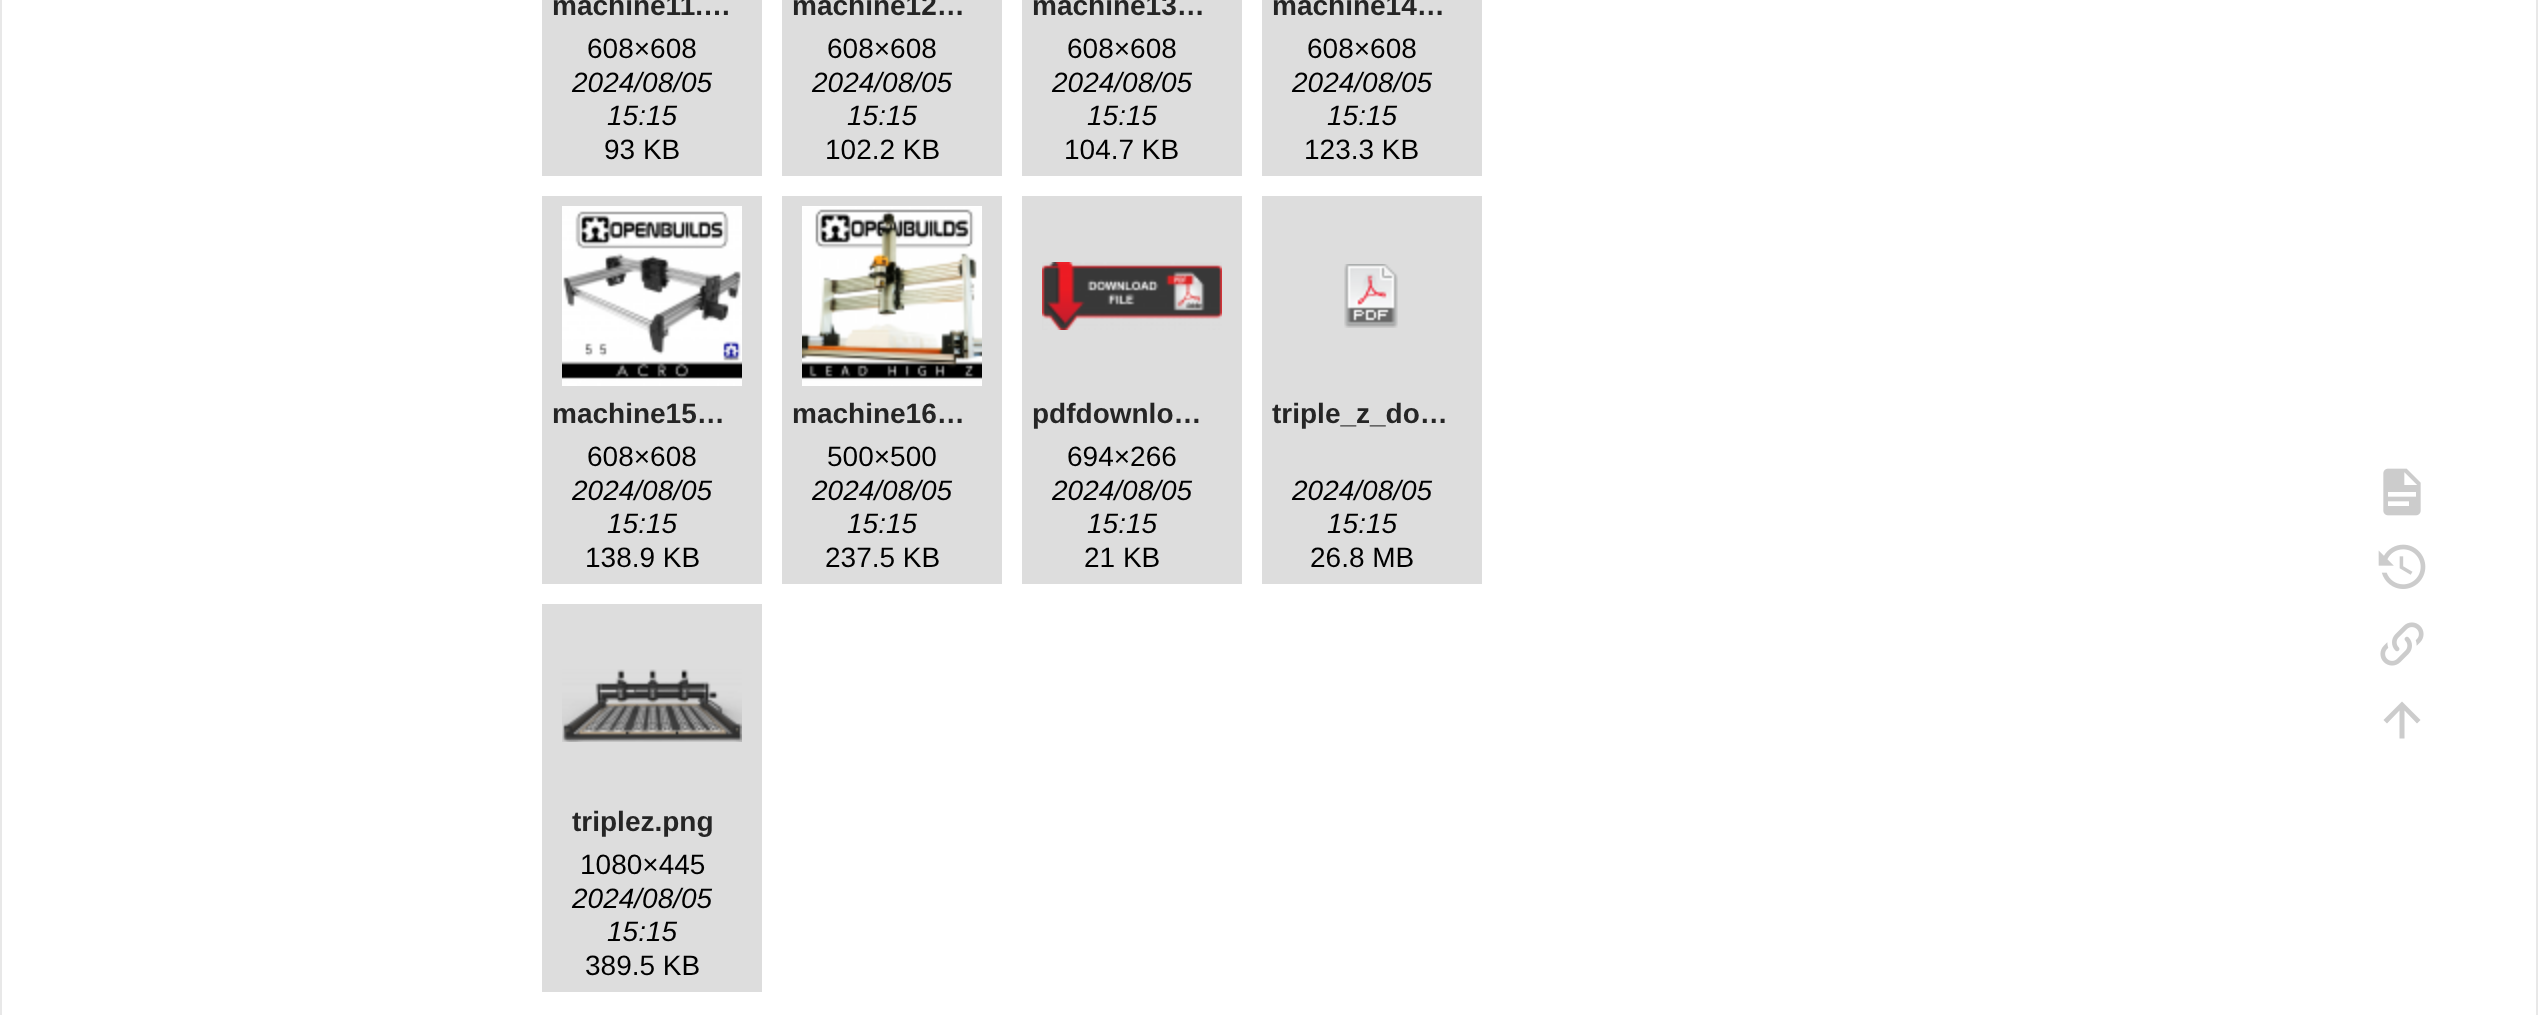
<svg xmlns="http://www.w3.org/2000/svg" width="2538" height="1015" viewBox="0 0 2538 1015">
  <rect width="100%" height="100%" fill="#fff"/>
  <path d="M1 -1h2536v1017H1z" fill="none" stroke="#e8e8e8" stroke-width="2"/>
  <path d="M542 0h220v176H542z" fill="#ddd"/>
  <path d="M782 0h220v176H782z" fill="#ddd"/>
  <path d="M1022 0h220v176H1022z" fill="#ddd"/>
  <path d="M1262 0h220v176H1262z" fill="#ddd"/>
  <path d="M542 196h220v388H542z" fill="#ddd"/>
  <image x="562" y="206" width="180" height="180" href="img/1.png"/>
  <path d="M782 196h220v388H782z" fill="#ddd"/>
  <image x="802" y="206" width="180" height="180" href="img/2.png"/>
  <path d="M1022 196h220v388H1022z" fill="#ddd"/>
  <image x="1042" y="262" width="180" height="68" href="img/3.png"/>
  <path d="M1262 196h220v388H1262z" fill="#ddd"/>
  <image x="1344" y="264" width="54" height="64" href="img/4.png"/>
  <path d="M542 604h220v388H542z" fill="#ddd"/>
  <image x="562" y="669" width="180" height="73" href="img/5.png"/>
  <image x="2383" y="468" width="38" height="48" href="img/6.png"/>
  <image x="2378" y="544" width="48" height="45" href="img/7.png"/>
  <image x="2380" y="622" width="44" height="44" href="img/8.png"/>
  <path d="M2404.5 738.5H2399.5V710.5L2387 723.5L2383.5 720L2402 701.5L2420.5 720L2417 723.5L2404.5 710.5Z" fill="#ccc"/>
  <text x="552" y="15" font-family="Liberation Sans" font-size="28" font-weight="bold" fill="#252525">machine11.…</text>
  <text x="587" y="58" font-family="Liberation Sans" font-size="28" fill="#000">608×608</text>
  <g font-family="Liberation Sans" font-size="28" font-style="italic" fill="#000">
    <text x="572" y="92">2024/08/05</text>
    <text x="607" y="125">15:15</text>
  </g>
  <text x="604" y="159" font-family="Liberation Sans" font-size="28" fill="#000">93 KB</text>
  <text x="792" y="15" font-family="Liberation Sans" font-size="28" font-weight="bold" fill="#252525">machine12…</text>
  <text x="827" y="58" font-family="Liberation Sans" font-size="28" fill="#000">608×608</text>
  <g font-family="Liberation Sans" font-size="28" font-style="italic" fill="#000">
    <text x="812" y="92">2024/08/05</text>
    <text x="847" y="125">15:15</text>
  </g>
  <text x="825" y="159" font-family="Liberation Sans" font-size="28" fill="#000">102.2 KB</text>
  <text x="1032" y="15" font-family="Liberation Sans" font-size="28" font-weight="bold" fill="#252525">machine13…</text>
  <text x="1067" y="58" font-family="Liberation Sans" font-size="28" fill="#000">608×608</text>
  <g font-family="Liberation Sans" font-size="28" font-style="italic" fill="#000">
    <text x="1052" y="92">2024/08/05</text>
    <text x="1087" y="125">15:15</text>
  </g>
  <text x="1064" y="159" font-family="Liberation Sans" font-size="28" fill="#000">104.7 KB</text>
  <text x="1272" y="15" font-family="Liberation Sans" font-size="28" font-weight="bold" fill="#252525">machine14…</text>
  <text x="1307" y="58" font-family="Liberation Sans" font-size="28" fill="#000">608×608</text>
  <g font-family="Liberation Sans" font-size="28" font-style="italic" fill="#000">
    <text x="1292" y="92">2024/08/05</text>
    <text x="1327" y="125">15:15</text>
  </g>
  <text x="1304" y="159" font-family="Liberation Sans" font-size="28" fill="#000">123.3 KB</text>
  <text x="552" y="423" font-family="Liberation Sans" font-size="28" font-weight="bold" fill="#252525">machine15…</text>
  <text x="587" y="466" font-family="Liberation Sans" font-size="28" fill="#000">608×608</text>
  <g font-family="Liberation Sans" font-size="28" font-style="italic" fill="#000">
    <text x="572" y="500">2024/08/05</text>
    <text x="607" y="533">15:15</text>
  </g>
  <text x="585" y="567" font-family="Liberation Sans" font-size="28" fill="#000">138.9 KB</text>
  <text x="792" y="423" font-family="Liberation Sans" font-size="28" font-weight="bold" fill="#252525">machine16…</text>
  <text x="827" y="466" font-family="Liberation Sans" font-size="28" fill="#000">500×500</text>
  <g font-family="Liberation Sans" font-size="28" font-style="italic" fill="#000">
    <text x="812" y="500">2024/08/05</text>
    <text x="847" y="533">15:15</text>
  </g>
  <text x="825" y="567" font-family="Liberation Sans" font-size="28" fill="#000">237.5 KB</text>
  <text x="1032" y="423" font-family="Liberation Sans" font-size="28" font-weight="bold" fill="#252525">pdfdownlo…</text>
  <text x="1067" y="466" font-family="Liberation Sans" font-size="28" fill="#000">694×266</text>
  <g font-family="Liberation Sans" font-size="28" font-style="italic" fill="#000">
    <text x="1052" y="500">2024/08/05</text>
    <text x="1087" y="533">15:15</text>
  </g>
  <text x="1084" y="567" font-family="Liberation Sans" font-size="28" fill="#000">21 KB</text>
  <text x="1272" y="423" font-family="Liberation Sans" font-size="28" font-weight="bold" fill="#252525">triple_z_do…</text>
  <g font-family="Liberation Sans" font-size="28" font-style="italic" fill="#000">
    <text x="1292" y="500">2024/08/05</text>
    <text x="1327" y="533">15:15</text>
  </g>
  <text x="1310" y="567" font-family="Liberation Sans" font-size="28" fill="#000">26.8 MB</text>
  <text x="572" y="831" font-family="Liberation Sans" font-size="28" font-weight="bold" fill="#252525">triplez.png</text>
  <text x="580" y="874" font-family="Liberation Sans" font-size="28" fill="#000">1080×445</text>
  <g font-family="Liberation Sans" font-size="28" font-style="italic" fill="#000">
    <text x="572" y="908">2024/08/05</text>
    <text x="607" y="941">15:15</text>
  </g>
  <text x="585" y="975" font-family="Liberation Sans" font-size="28" fill="#000">389.5 KB</text>
</svg>
